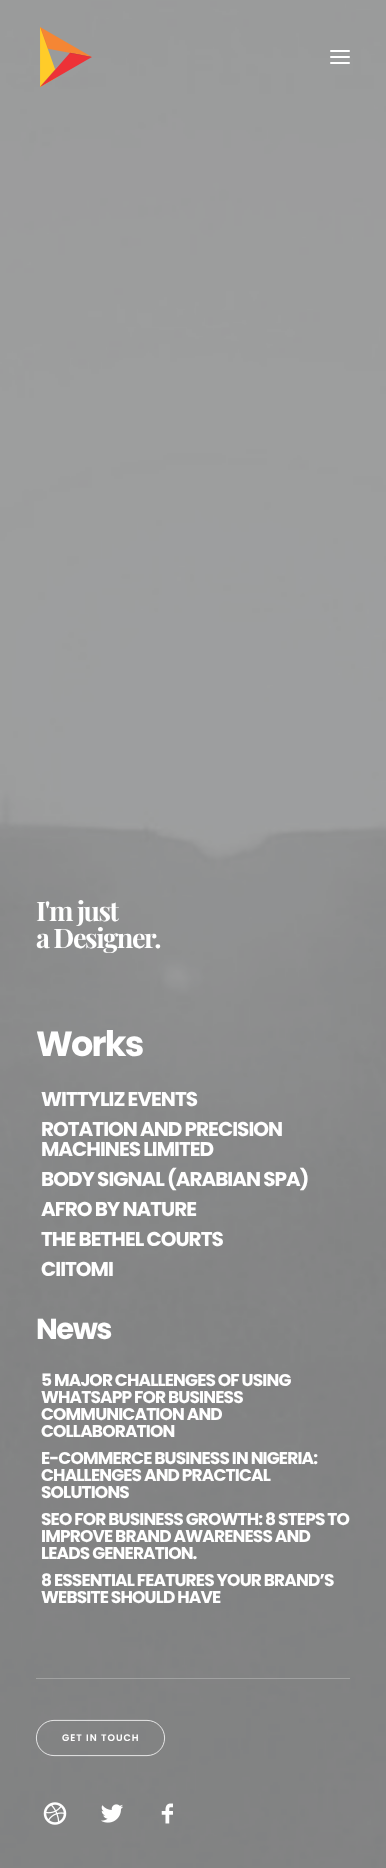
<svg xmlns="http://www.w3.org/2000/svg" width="386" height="1868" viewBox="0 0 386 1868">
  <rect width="100%" height="100%" fill="#fff"/>
  <image x="0" y="0" width="386" height="1868" href="img/2.png"/>
  <image x="40" y="27" width="52" height="60" href="img/1.png"/>
  <rect x="330" y="56" width="20" height="2" rx="1" fill="#fff"/>
  <rect x="330" y="50" width="20" height="2" rx="1" fill="#fff"/>
  <rect x="330" y="62" width="20" height="2" rx="1" fill="#fff"/>
  <path d="M36 1678h314v1H36z" fill="#a1a2a2"/>
  <rect x="36.4" y="1720.4" width="128.2" height="35.2" rx="17.6" fill="none" stroke="#fff" stroke-width="0.8"/>
  <image x="43" y="1802" width="24" height="23" href="img/3.png"/>
  <image x="101" y="1804" width="22" height="19" href="img/4.png"/>
  <image x="161" y="1803" width="12" height="21" href="img/5.png"/>
  <g font-family="Playfair Display" font-size="27" font-weight="bold" letter-spacing="-1.4" fill="#fff">
    <text x="36" y="921">I'm just</text>
    <text x="36" y="948">a Designer.</text>
  </g>
  <text x="36" y="1056" font-family="Poppins" font-size="35" font-weight="bold" letter-spacing="-1.75" fill="#fff">Works</text>
  <g font-family="Poppins" font-size="20" font-weight="bold" letter-spacing="-1" fill="#fff">
    <text x="41" y="1106">WITTYLIZ EVENTS</text>
    <text x="41" y="1136">ROTATION AND PRECISION</text>
    <text x="41" y="1156">MACHINES LIMITED</text>
    <text x="41" y="1186">BODY SIGNAL (ARABIAN SPA)</text>
    <text x="41" y="1216">AFRO BY NATURE</text>
    <text x="41" y="1246">THE BETHEL COURTS</text>
    <text x="41" y="1276">CIITOMI</text>
  </g>
  <text x="36" y="1339" font-family="Poppins" font-size="29" font-weight="bold" letter-spacing="-1.5" fill="#fff">News</text>
  <g font-family="Poppins" font-size="17" font-weight="bold" letter-spacing="-0.85" fill="#fff">
    <text x="41" y="1386">5 MAJOR CHALLENGES OF USING</text>
    <text x="41" y="1403">WHATSAPP FOR BUSINESS</text>
    <text x="41" y="1420">COMMUNICATION AND</text>
    <text x="41" y="1437">COLLABORATION</text>
    <text x="41" y="1464">E-COMMERCE BUSINESS IN NIGERIA:</text>
    <text x="41" y="1481">CHALLENGES AND PRACTICAL</text>
    <text x="41" y="1498">SOLUTIONS</text>
    <text x="41" y="1525">SEO FOR BUSINESS GROWTH: 8 STEPS TO</text>
    <text x="41" y="1542">IMPROVE BRAND AWARENESS AND</text>
    <text x="41" y="1559">LEADS GENERATION.</text>
    <text x="41" y="1586">8 ESSENTIAL FEATURES YOUR BRAND’S</text>
    <text x="41" y="1603">WEBSITE SHOULD HAVE</text>
  </g>
  <text x="62" y="1741" font-family="Poppins" font-size="9.5" font-weight="600" letter-spacing="1" fill="#fff">GET IN TOUCH</text>
</svg>
